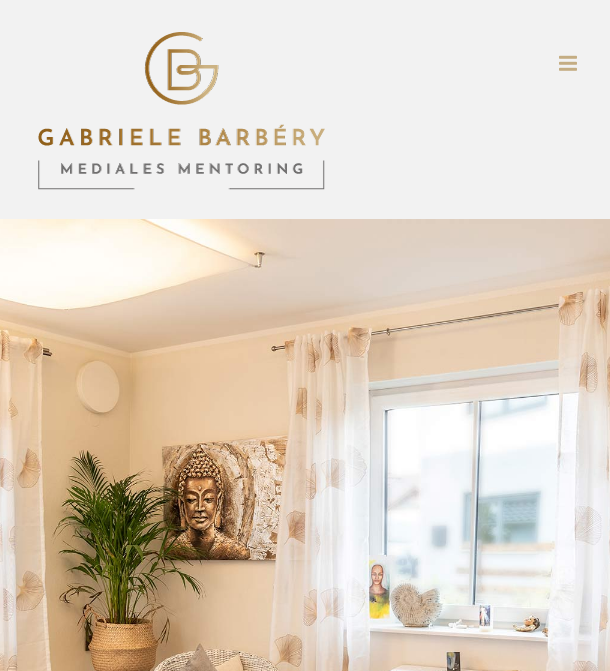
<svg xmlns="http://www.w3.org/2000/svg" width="610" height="671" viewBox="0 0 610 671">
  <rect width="100%" height="100%" fill="#f2f2f2"/>
  <image x="38" y="32" width="287" height="158" href="img/1.png"/>
  <image x="559" y="55" width="18" height="16" href="img/2.png"/>
  <image x="0" y="219" width="610" height="452" href="img/3.png"/>
</svg>
